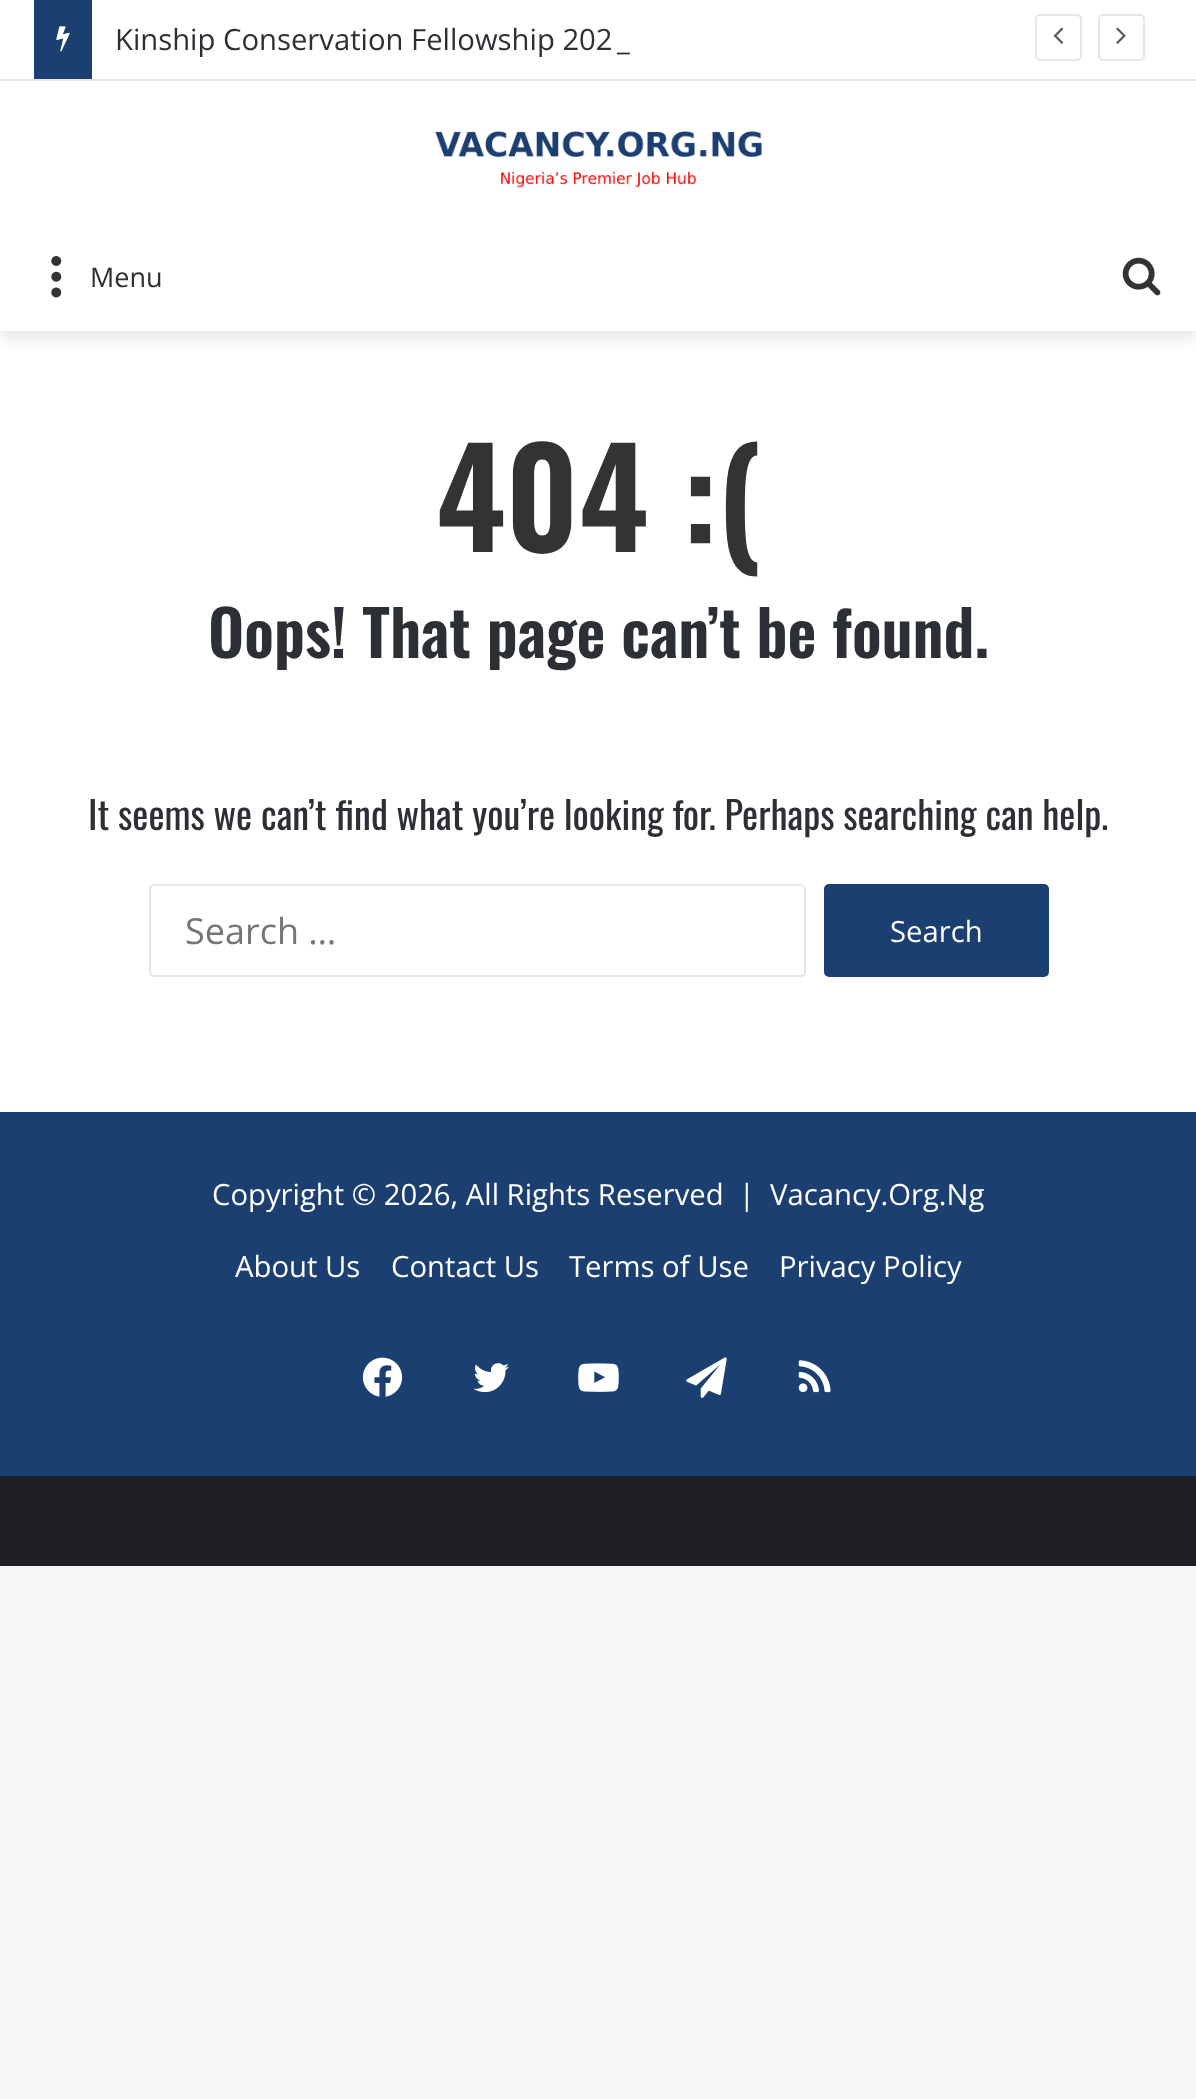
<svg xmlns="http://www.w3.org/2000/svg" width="1196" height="2099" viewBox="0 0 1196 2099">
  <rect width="100%" height="100%" fill="#f7f7f7"/>
  <path d="M0 331h1196v781H0z" fill="#fff"/>
  <path d="M0 88h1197v250H0z" fill="#0000001a" filter="blur(8px)"/>
  <path d="M0 0h1196v79H0z" fill="#fff"/>
  <path d="M0 79h1196v2H0z" fill="#e6e6e6"/>
  <path d="M34 0h58v79H34z" fill="#1c3f71"/>
  <image x="56" y="26" width="14" height="26" href="img/1.png"/>
  <rect x="1036" y="15" width="45" height="45" rx="4" fill="none" stroke="#e6e6e6" stroke-width="2"/>
  <image x="1053" y="27" width="11" height="17" href="img/2.png"/>
  <rect x="1099" y="15" width="45" height="45" rx="4" fill="none" stroke="#e6e6e6" stroke-width="2"/>
  <image x="1116" y="27" width="10" height="17" href="img/3.png"/>
  <path d="M0 81h1196v250H0z" fill="#fff"/>
  <image x="435" y="131" width="327" height="57" href="img/4.png"/>
  <image x="51" y="256" width="11" height="42" href="img/5.png"/>
  <image x="1122" y="257" width="39" height="39" href="img/6.png"/>
  <rect x="150" y="885" width="655" height="91" rx="4" fill="none" stroke="#e6e6e6" stroke-width="2"/>
  <rect x="824" y="884" width="225" height="93" rx="5" fill="#1c3f71"/>
  <path d="M0 1476h1196v90H0z" fill="#1f2024"/>
  <path d="M0 1112h1196v364H0z" fill="#1c3f71"/>
  <image x="362" y="1357" width="41" height="40" href="img/7.png"/>
  <image x="473" y="1363" width="36" height="30" href="img/8.png"/>
  <image x="578" y="1363" width="41" height="29" href="img/9.png"/>
  <image x="686" y="1357" width="41" height="41" href="img/10.png"/>
  <image x="798" y="1360" width="33" height="33" href="img/11.png"/>
  <g font-family="Open Sans" font-size="29.25" fill="#2c2f34">
    <text x="115" y="50">Kinship Conservation Fellowship 202</text>
    <text x="617" y="50">_</text>
  </g>
  <text x="90" y="287" font-family="Open Sans" font-size="27" fill="#2c2f34">Menu</text>
  <text x="436" y="552" font-family="Oswald" font-size="135" font-weight="600" fill="#333">404 :(</text>
  <text x="208" y="658" font-family="Oswald" font-size="63" font-weight="600" fill="#2c2f34">Oops! That page can’t be found.</text>
  <text x="88" y="830" font-family="Oswald" font-size="38.25" fill="#2c2f34">It seems we can’t find what you’re looking for. Perhaps searching can help.</text>
  <text x="185" y="944" font-family="Open Sans" font-size="36" fill="#757575">Search …</text>
  <g font-family="Open Sans" font-size="29.25" fill="#fff">
    <text x="890" y="942">Search</text>
    <text x="212" y="1205" xml:space="preserve">Copyright © 2026, All Rights Reserved  |</text>
    <text x="770" y="1205">Vacancy.Org.Ng</text>
    <text x="235" y="1277">About Us</text>
    <text x="391" y="1277">Contact Us</text>
    <text x="569" y="1277">Terms of Use</text>
    <text x="779" y="1277">Privacy Policy</text>
  </g>
</svg>
